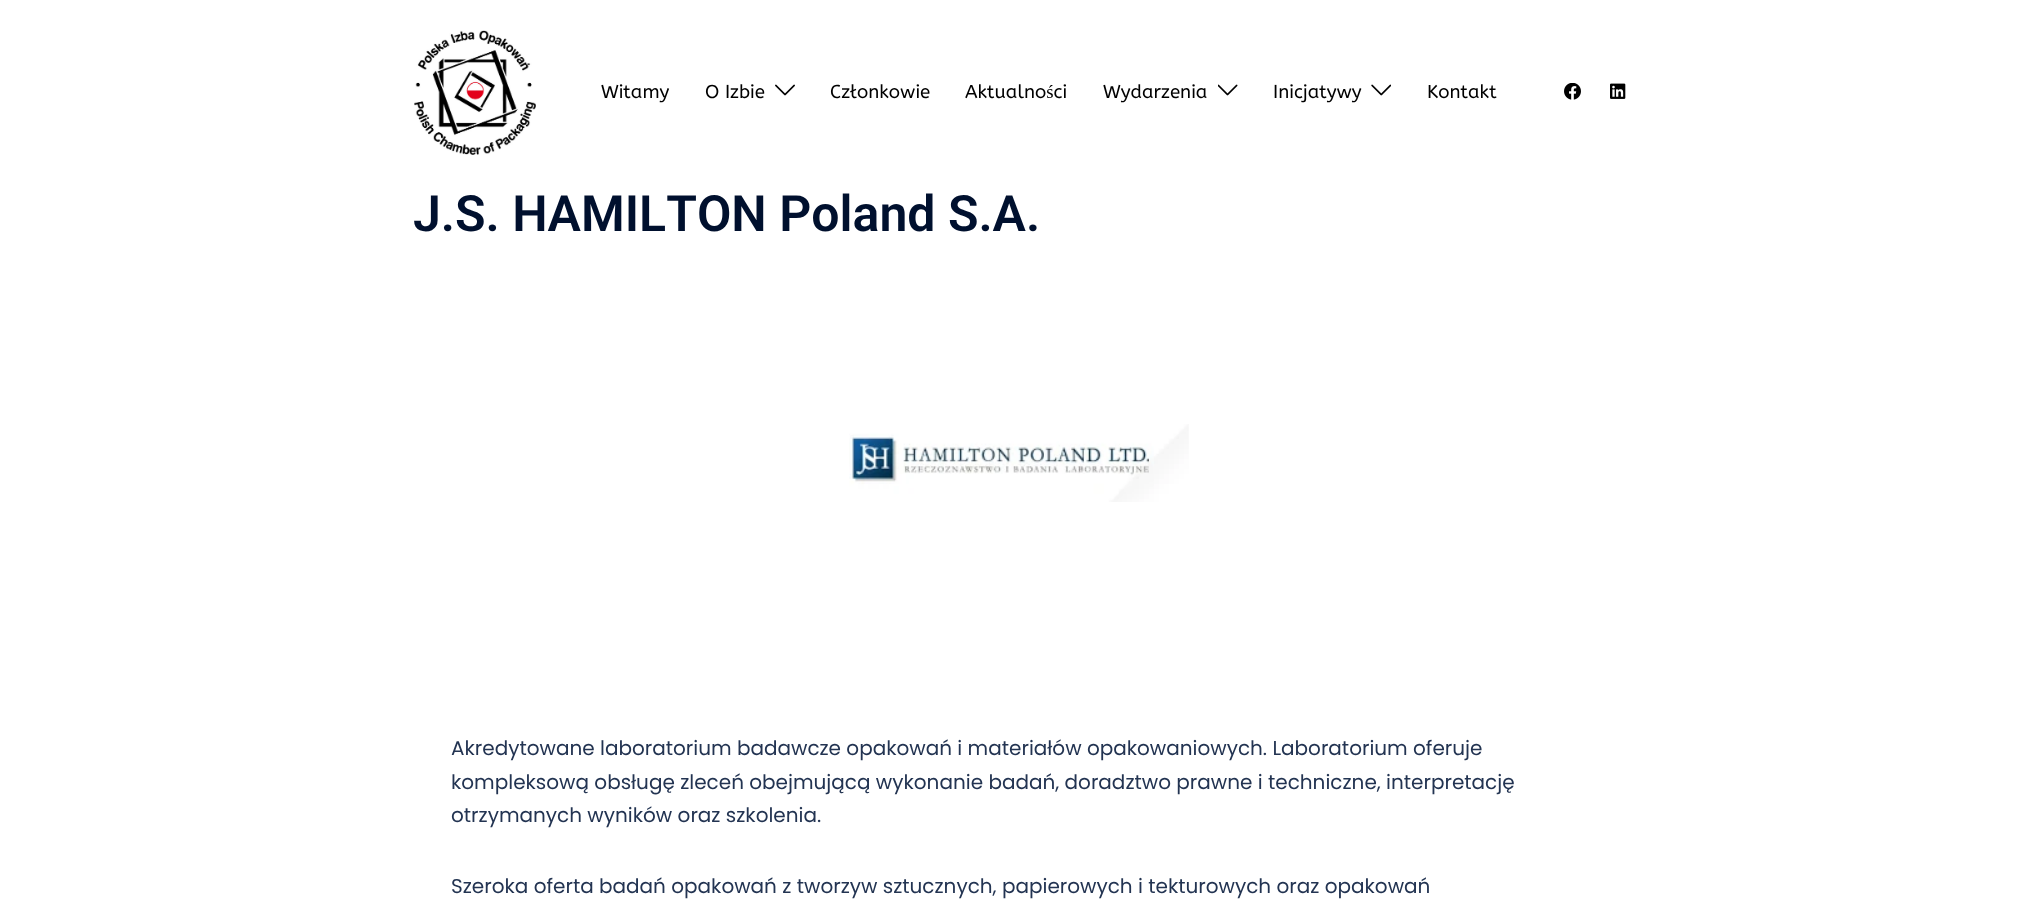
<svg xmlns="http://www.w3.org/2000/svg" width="2038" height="913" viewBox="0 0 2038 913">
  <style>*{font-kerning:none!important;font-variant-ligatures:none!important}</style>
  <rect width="100%" height="100%" fill="#fff"/>
  <image x="414" y="30" width="122" height="125" href="img/1.png"/>
  <image x="775" y="84" width="20" height="12" href="img/2.png"/>
  <image x="1218" y="84" width="20" height="12" href="img/3.png"/>
  <image x="1371" y="84" width="20" height="12" href="img/4.png"/>
  <image x="1564" y="83" width="17" height="17" href="img/5.png"/>
  <image x="1610" y="83" width="16" height="16" href="img/6.png"/>
  <image x="849" y="424" width="340" height="78" href="img/7.png"/>
  <g font-family="ABeeZee" font-size="18.75" fill="#000">
    <text x="601" y="98">Witamy</text>
    <text x="705" y="98">O Izbie</text>
    <text x="830" y="98">Członkowie</text>
    <text x="965" y="98">Aktualności</text>
    <text x="1103" y="98">Wydarzenia</text>
    <text x="1273" y="98">Inicjatywy</text>
    <text x="1427" y="98">Kontakt</text>
  </g>
  <text x="413" y="231" font-family="Roboto" font-size="50" font-weight="600" fill="#00102e">J.S. HAMILTON Poland S.A.</text>
  <g font-family="Poppins" font-size="20" fill="#233452">
    <text x="451" y="755">Akredytowane laboratorium badawcze opakowań i materiałów opakowaniowych. Laboratorium oferuje</text>
    <text x="451" y="789">kompleksową obsługę zleceń obejmującą wykonanie badań, doradztwo prawne i techniczne, interpretację</text>
    <text x="451" y="822">otrzymanych wyników oraz szkolenia.</text>
    <text x="451" y="893">Szeroka oferta badań opakowań z tworzyw sztucznych, papierowych i tekturowych oraz opakowań</text>
  </g>
</svg>
